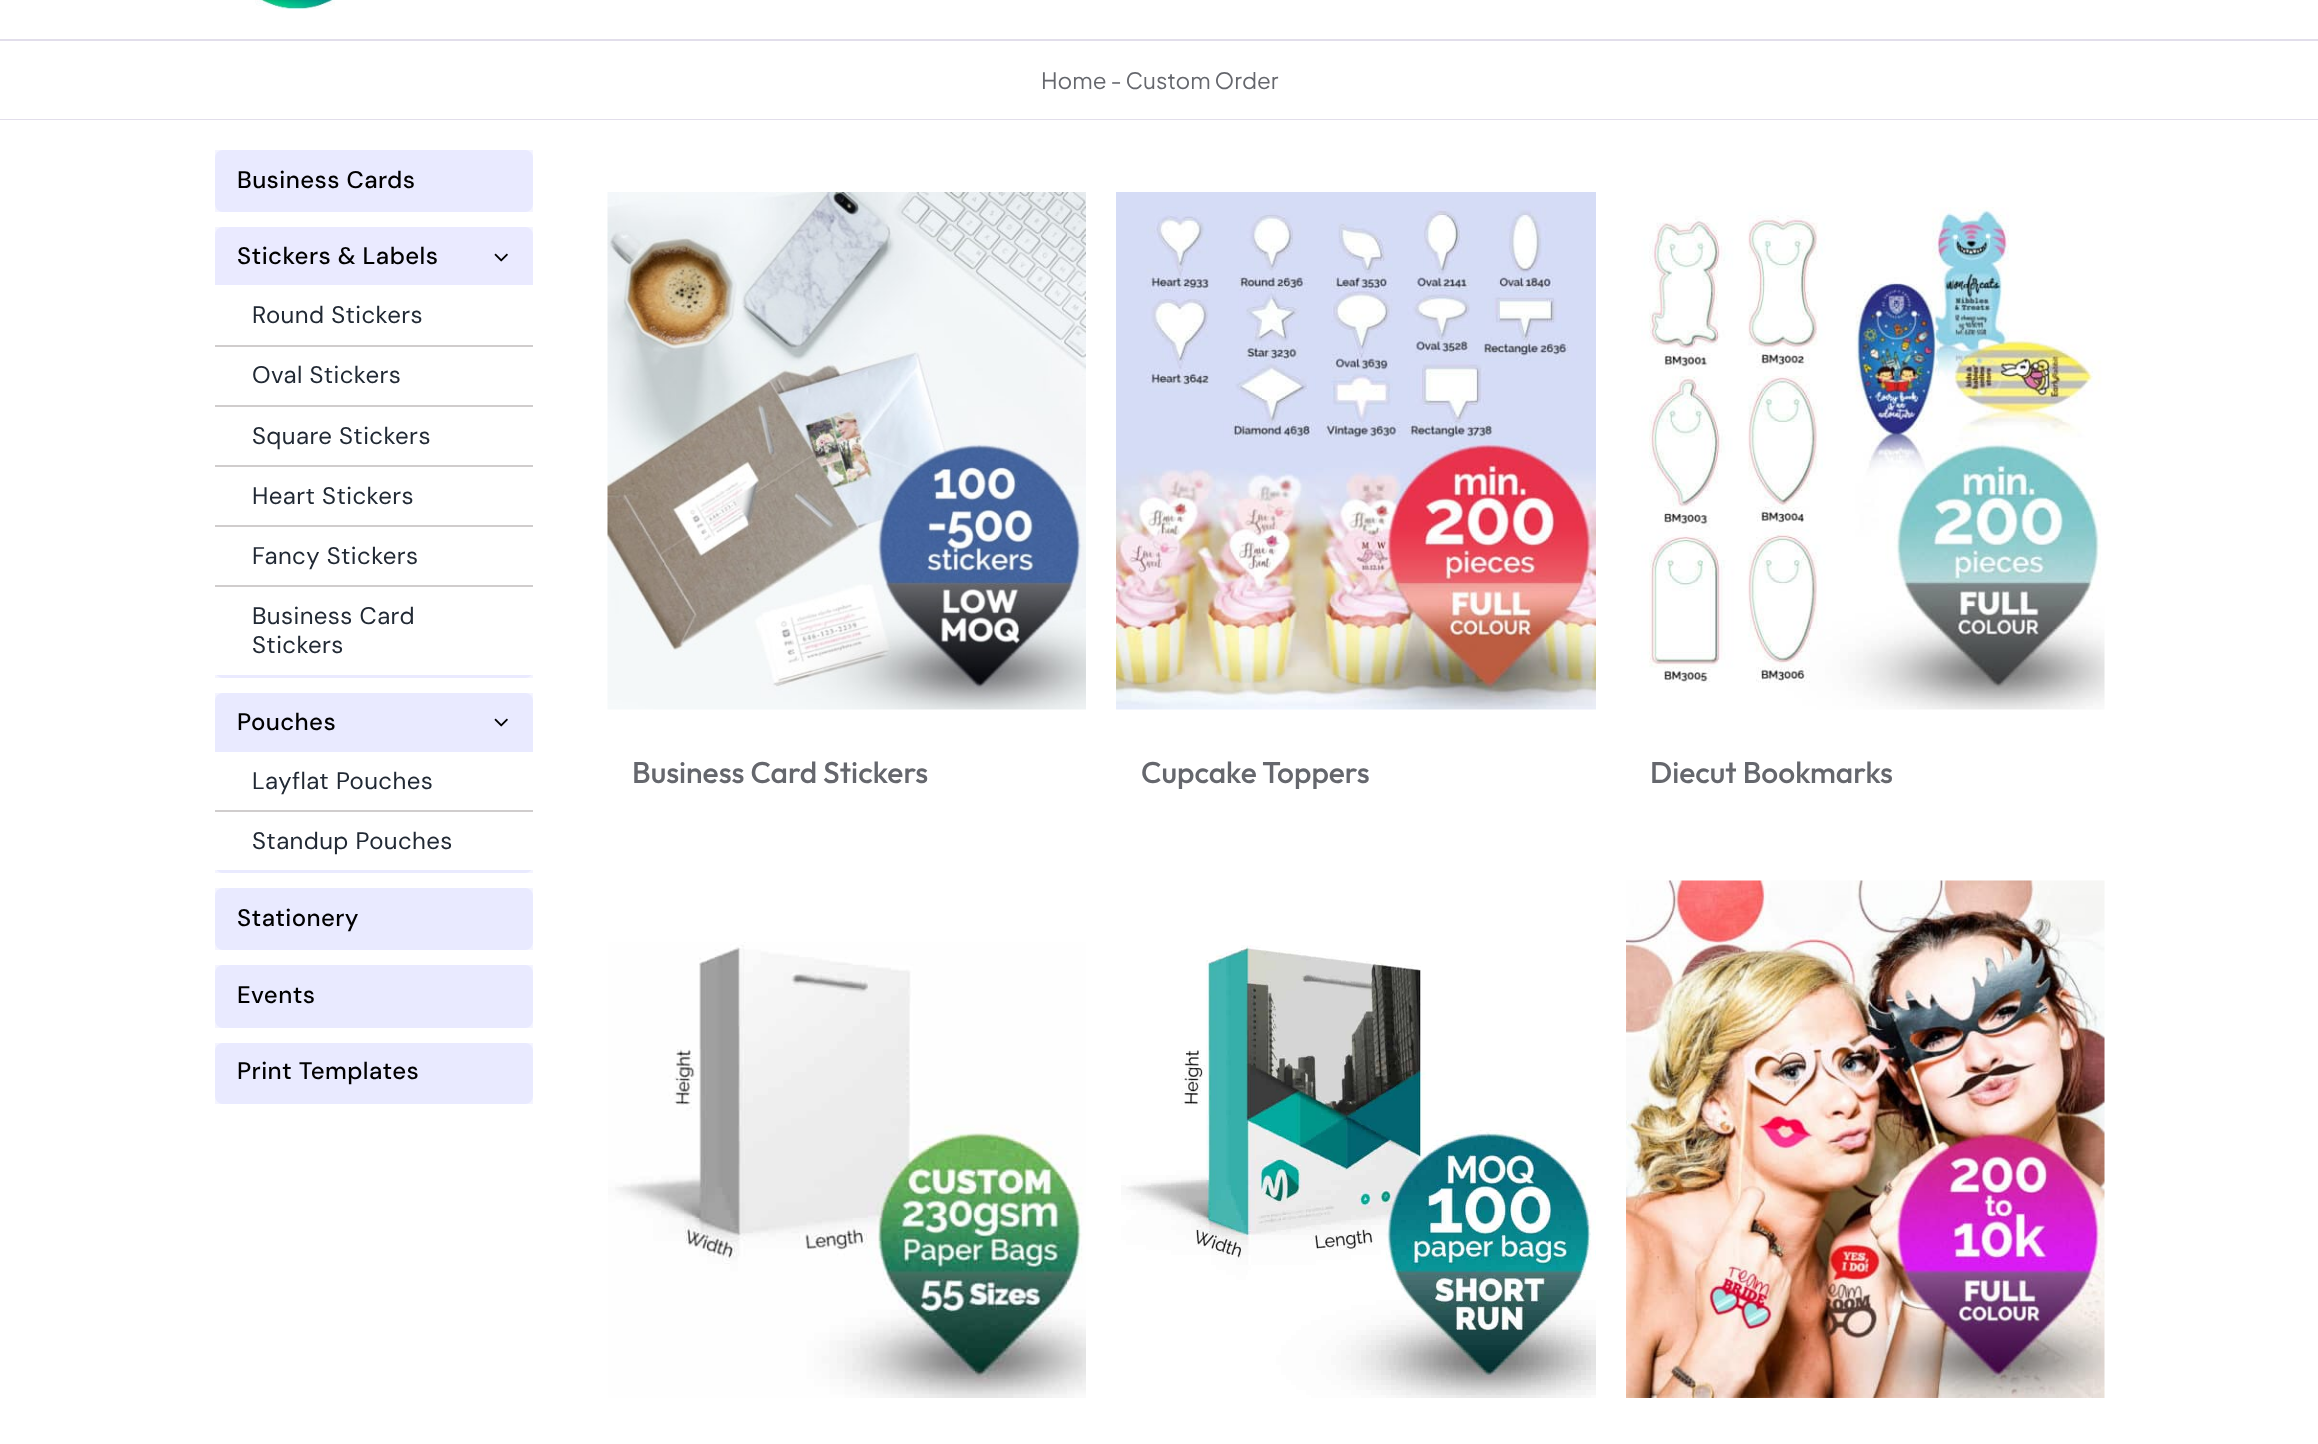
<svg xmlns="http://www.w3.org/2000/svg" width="2318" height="1444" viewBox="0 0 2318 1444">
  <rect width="100%" height="100%" fill="#fff"/>
  <image x="255" y="0" width="80" height="9" href="img/1.png"/>
  <path d="M0 39h2318v2H0z" fill="#e2deeb"/>
  <path d="M0 119h2318v1H0z" fill="#e2deeb"/>
  <rect x="215" y="150" width="318" height="62" rx="8" fill="#f4f5ff"/>
  <path d="M215 150h318v62H215z" fill="#242fff0d"/>
  <rect x="215" y="227" width="318" height="451" rx="8" fill="#f5f5ff"/>
  <path d="M215 227h318v451H215z" fill="#242fff0d"/>
  <image x="494" y="253" width="14" height="9" href="img/2.png"/>
  <path d="M215 285h318v60H215z" fill="#fff"/>
  <path d="M215 345h318v2H215z" fill="#d0cdcd"/>
  <path d="M215 347h318v58H215z" fill="#fff"/>
  <path d="M215 405h318v2H215z" fill="#d0cdcd"/>
  <path d="M215 407h318v58H215z" fill="#fff"/>
  <path d="M215 465h318v2H215z" fill="#d0cdcd"/>
  <path d="M215 467h318v58H215z" fill="#fff"/>
  <path d="M215 525h318v2H215z" fill="#d0cdcd"/>
  <path d="M215 527h318v58H215z" fill="#fff"/>
  <path d="M215 585h318v2H215z" fill="#d0cdcd"/>
  <path d="M215 587h318v88H215z" fill="#fff"/>
  <rect x="215" y="693" width="318" height="180" rx="8" fill="#f4f5ff"/>
  <path d="M215 693h318v180H215z" fill="#242fff0d"/>
  <image x="494" y="718" width="14" height="9" href="img/3.png"/>
  <path d="M215 752h318v58H215z" fill="#fff"/>
  <path d="M215 810h318v2H215z" fill="#d0cdcd"/>
  <path d="M215 812h318v58H215z" fill="#fff"/>
  <rect x="215" y="888" width="318" height="62" rx="8" fill="#f4f5ff"/>
  <path d="M215 888h318v62H215z" fill="#242fff0d"/>
  <rect x="215" y="965" width="318" height="63" rx="8" fill="#f4f5ff"/>
  <path d="M215 965h318v63H215z" fill="#242fff0d"/>
  <rect x="215" y="1043" width="318" height="61" rx="8" fill="#f4f5ff"/>
  <path d="M215 1043h318v61H215z" fill="#242fff0d"/>
  <image x="607" y="192" width="479" height="518" href="img/4.png"/>
  <image x="1116" y="192" width="480" height="518" href="img/5.png"/>
  <image x="1641" y="207" width="464" height="503" href="img/6.png"/>
  <image x="608" y="942" width="478" height="456" href="img/7.png"/>
  <image x="1121" y="945" width="475" height="453" href="img/8.png"/>
  <image x="1626" y="880" width="479" height="518" href="img/9.png"/>
  <text x="1041" y="89" font-family="Plus Jakarta Sans" font-size="22.5" fill="#65676d">Home - Custom Order</text>
  <g font-family="DM Sans" font-size="24" font-weight="500" letter-spacing="0.4" fill="#000">
    <text x="237" y="188">Business Cards</text>
    <text x="237" y="264">Stickers &amp; Labels</text>
  </g>
  <g font-family="DM Sans" font-size="24" letter-spacing="0.4" fill="#212934">
    <text x="252" y="323">Round Stickers</text>
    <text x="252" y="383">Oval Stickers</text>
    <text x="252" y="444">Square Stickers</text>
    <text x="252" y="504">Heart Stickers</text>
    <text x="252" y="564">Fancy Stickers</text>
    <text x="252" y="624">Business Card</text>
    <text x="252" y="653">Stickers</text>
  </g>
  <text x="237" y="730" font-family="DM Sans" font-size="24" font-weight="500" letter-spacing="0.4" fill="#000">Pouches</text>
  <g font-family="DM Sans" font-size="24" letter-spacing="0.4" fill="#212934">
    <text x="252" y="789">Layflat Pouches</text>
    <text x="252" y="849">Standup Pouches</text>
  </g>
  <g font-family="DM Sans" font-size="24" font-weight="500" letter-spacing="0.4" fill="#000">
    <text x="237" y="926">Stationery</text>
    <text x="237" y="1003">Events</text>
    <text x="237" y="1079">Print Templates</text>
  </g>
  <g font-family="Outfit" font-size="30" font-weight="500" fill="#65676d">
    <text x="632" y="783">Business Card Stickers</text>
    <text x="1141" y="783">Cupcake Toppers</text>
    <text x="1650" y="783">Diecut Bookmarks</text>
  </g>
</svg>
